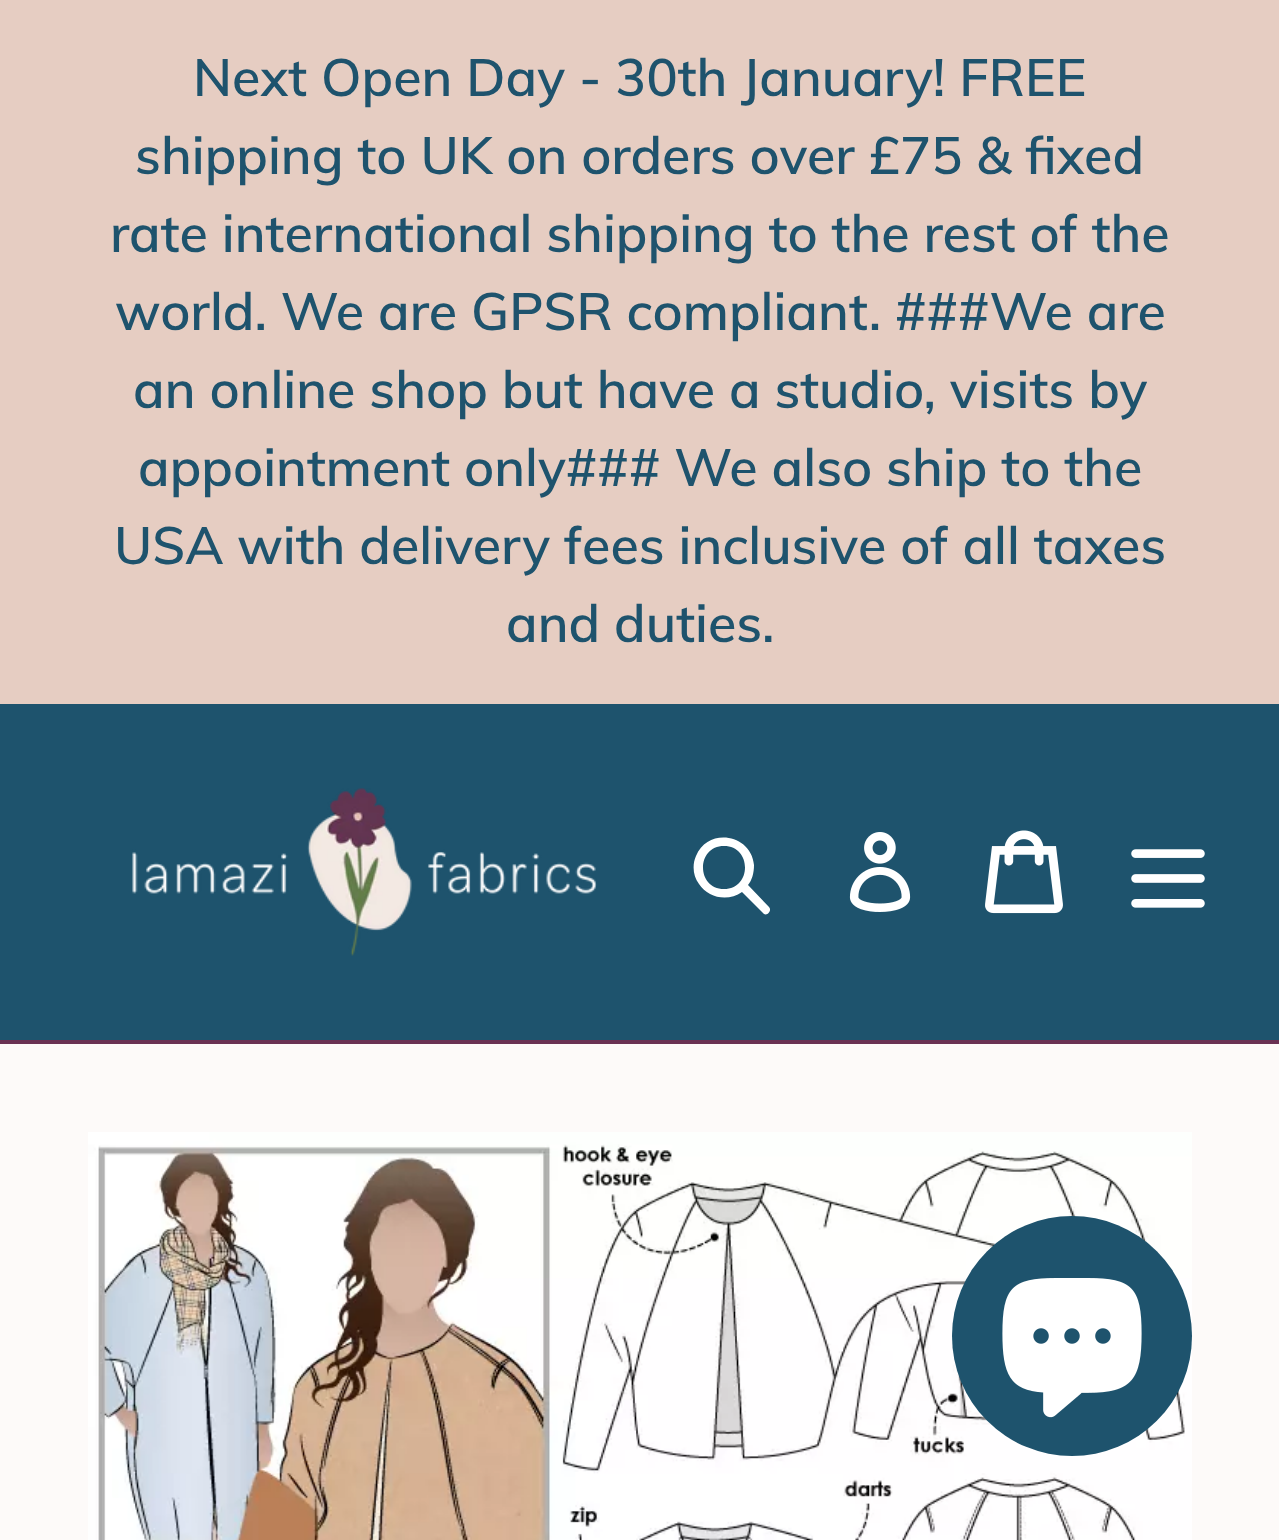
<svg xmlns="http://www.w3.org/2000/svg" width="1279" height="1540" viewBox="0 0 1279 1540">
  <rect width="100%" height="100%" fill="#fdfaf9"/>
  <path d="M0 704h1279v336H0z" fill="#1e536d"/>
  <path d="M0 0h1279v704H0z" fill="#e6cdc2"/>
  <path d="M0 1040h1279v4H0z" fill="#6a3153"/>
  <image x="132" y="788" width="465" height="168" href="img/1.png"/>
  <path d="M769 907L748 885C752 880 754 873 754 865C751 834 708 827 696 856C692 865 693 876 699 884C708 898 728 902 742 892L764 914C768 916 772 910 769 907ZM724 889C696 889 696 846 724 846C752 846 752 889 724 889Z" fill="#fff"/>
  <image x="849" y="832" width="62" height="80" href="img/2.png"/>
  <image x="985" y="830" width="78" height="84" href="img/3.png"/>
  <image x="1131" y="849" width="74" height="59" href="img/4.png"/>
  <image x="88" y="1132" width="1104" height="408" href="img/5.png"/>
  <circle cx="1072" cy="1336" r="120" fill="#1e536d"/>
  <image x="1002" y="1278" width="140" height="140" href="img/6.png"/>
  <g font-family="Muli" font-size="52" font-weight="600" fill="#1e536d">
    <text x="193" y="96">Next Open Day - 30th January! FREE</text>
    <text x="135" y="174">shipping to UK on orders over £75 &amp; fixed</text>
    <text x="110" y="252">rate international shipping to the rest of the</text>
    <text x="115" y="330">world. We are GPSR compliant. ###We are</text>
    <text x="133" y="408">an online shop but have a studio, visits by</text>
    <text x="138" y="486">appointment only### We also ship to the</text>
    <text x="114" y="564">USA with delivery fees inclusive of all taxes</text>
    <text x="506" y="642">and duties.</text>
  </g>
</svg>
